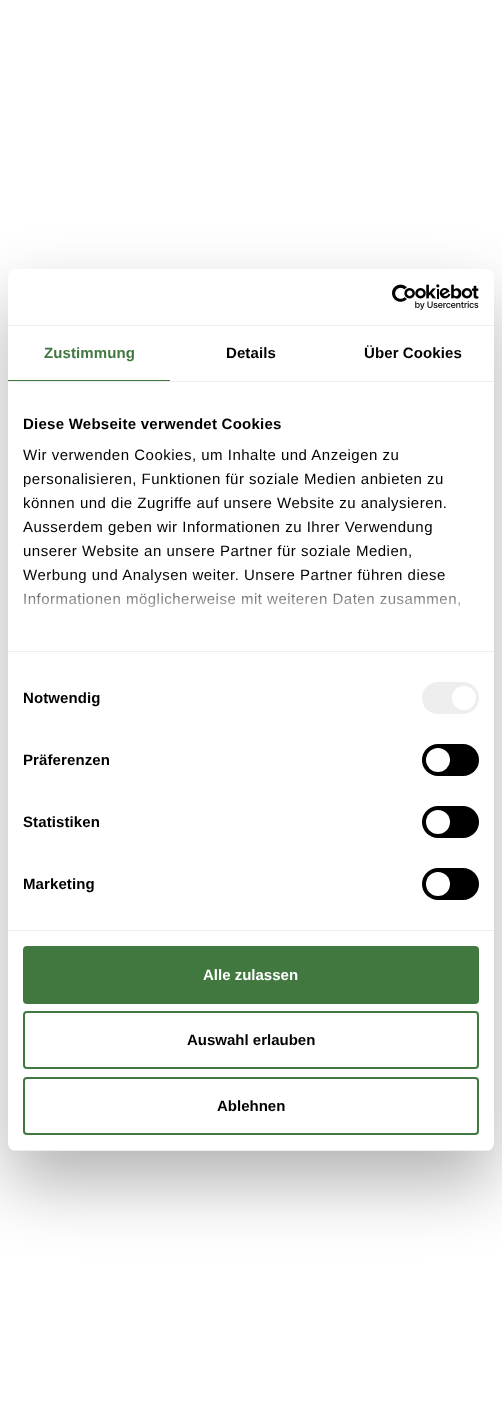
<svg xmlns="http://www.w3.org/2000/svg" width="502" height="1420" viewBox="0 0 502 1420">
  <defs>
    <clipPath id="clip1"><rect x="8" y="269" width="486" height="882" rx="8"/></clipPath>
    <linearGradient id="g1" gradientUnits="userSpaceOnUse" x1="245" y1="651" x2="245" y2="576"><stop offset="0" stop-color="#fff"/><stop offset="0.5" stop-color="#fff" stop-opacity="0.8"/><stop offset="1" stop-color="#fff" stop-opacity="0"/></linearGradient>
  </defs>
  <rect width="100%" height="100%" fill="#fff"/>
  <rect x="8" y="301" width="486" height="882" rx="8" fill="#0000004d" filter="blur(34px)"/>
  <rect x="8" y="269" width="486" height="882" rx="8" fill="#fff"/>
  <path d="M8 325h486v1H8z" fill="#eee"/>
  <image x="392" y="284" width="87" height="26" href="img/1.png"/>
  <path d="M8 381h486v1H8z" fill="#eee"/>
  <path d="M8 380h162v1H8z" fill="#407840"/>
  <path d="M8 651h486v1H8z" fill="#eee"/>
  <path d="M8 930h486v1H8z" fill="#eee"/>
  <rect x="422" y="682" width="57" height="32" rx="16" fill="#eee"/>
  <circle cx="464" cy="698" r="12" fill="#fff"/>
  <rect x="422" y="744" width="57" height="32" rx="16" fill="#000"/>
  <circle cx="438" cy="760" r="12" fill="#fff"/>
  <rect x="422" y="806" width="57" height="32" rx="16" fill="#000"/>
  <circle cx="438" cy="822" r="12" fill="#fff"/>
  <rect x="422" y="868" width="57" height="32" rx="16" fill="#000"/>
  <circle cx="438" cy="884" r="12" fill="#fff"/>
  <g clip-path="url(#clip1)">
    <path d="M8 1150h486v1H8z" fill="#eee"/>
  </g>
  <rect x="24" y="947" width="454" height="56" rx="3" fill="#407840" stroke="#407840" stroke-width="2"/>
  <rect x="24" y="1012" width="454" height="56" rx="3" fill="none" stroke="#407840" stroke-width="2"/>
  <rect x="24" y="1078" width="454" height="56" rx="3" fill="none" stroke="#407840" stroke-width="2"/>
  <text x="44" y="358" font-family="Liberation Sans" font-size="15" font-weight="bold" letter-spacing="0.1" fill="#407840">Zustimmung</text>
  <g font-family="Liberation Sans" font-size="15" font-weight="bold" letter-spacing="0.1" fill="#000">
    <text x="226" y="358">Details</text>
    <text x="364" y="358">Über Cookies</text>
  </g>
  <text x="23" y="429" font-family="Liberation Sans" font-size="15" font-weight="bold" letter-spacing="0.25" fill="#000">Diese Webseite verwendet Cookies</text>
  <g font-family="Liberation Sans" font-size="15" letter-spacing="0.5" fill="#000">
    <text x="23" y="460">Wir verwenden Cookies, um Inhalte und Anzeigen zu</text>
    <text x="23" y="484">personalisieren, Funktionen für soziale Medien anbieten zu</text>
    <text x="23" y="508">können und die Zugriffe auf unsere Website zu analysieren.</text>
    <text x="23" y="532">Ausserdem geben wir Informationen zu Ihrer Verwendung</text>
    <text x="23" y="556">unserer Website an unsere Partner für soziale Medien,</text>
    <text x="23" y="580">Werbung und Analysen weiter. Unsere Partner führen diese</text>
    <text x="23" y="604">Informationen möglicherweise mit weiteren Daten zusammen,</text>
  </g>
  <path d="M24 577h436v31H24z" fill="url(#g1)"/>
  <g font-family="Liberation Sans" font-size="15" font-weight="bold" letter-spacing="0.1" fill="#000">
    <text x="23" y="703">Notwendig</text>
    <text x="23" y="765">Präferenzen</text>
    <text x="23" y="827">Statistiken</text>
    <text x="23" y="889">Marketing</text>
  </g>
  <text x="203" y="980" font-family="Liberation Sans" font-size="15" font-weight="bold" fill="#fff">Alle zulassen</text>
  <g font-family="Liberation Sans" font-size="15" font-weight="bold" fill="#000">
    <text x="187" y="1045">Auswahl erlauben</text>
    <text x="217" y="1111">Ablehnen</text>
  </g>
</svg>
